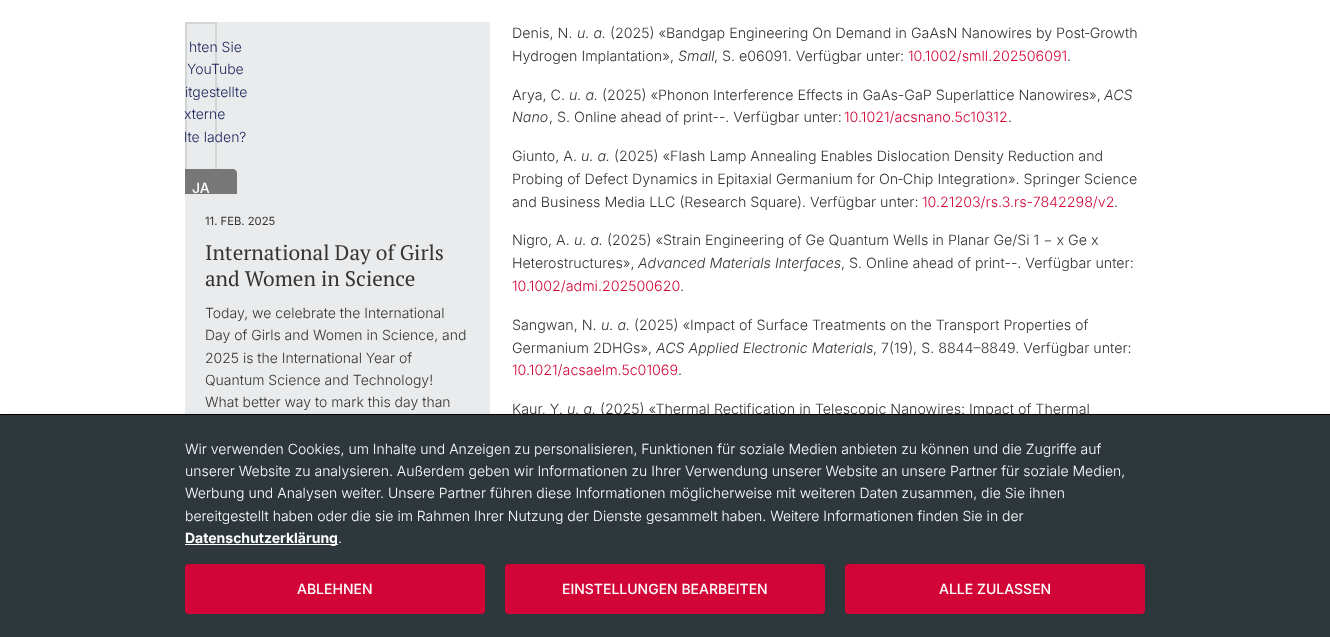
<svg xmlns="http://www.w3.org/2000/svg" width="1330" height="637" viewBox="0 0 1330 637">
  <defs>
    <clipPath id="clip1"><path d="M185 22h305v172H185z"/></clipPath>
  </defs>
  <rect width="100%" height="100%" fill="#fff"/>
  <path d="M185 22h305v392H185z" fill="#eaebec"/>
  <path d="M186 23h30v170H186z" fill="none" stroke="#d3d4d4" stroke-width="2"/>
  <path d="M185 169H233C235 169 237 171 237 173V194H185Z" fill="#777"/>
  <path d="M5 419h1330v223H5z" fill="#00000030" filter="blur(5px)"/>
  <g font-family="Inter" font-size="14" font-weight="300" fill="#161f57">
    <text x="189" y="52">hten Sie</text>
    <text x="187" y="74">YouTube</text>
    <text x="185" y="97">itgestellte</text>
    <text x="184" y="119">xterne</text>
  </g>
  <g clip-path="url(#clip1)">
    <text x="184" y="142" font-family="Inter" font-size="14" font-weight="300" fill="#161f57">lte laden?</text>
  </g>
  <text x="192" y="193" font-family="Inter" font-size="14" font-weight="500" fill="#fff">JA</text>
  <text x="205" y="225" font-family="Inter" font-size="11.25" fill="#333">11. FEB. 2025</text>
  <g font-family="PT Serif" font-size="21" fill="#333">
    <text x="205" y="260">International Day of Girls</text>
    <text x="205" y="286">and Women in Science</text>
  </g>
  <g font-family="Inter" font-size="14" font-weight="300" fill="#333">
    <text x="205" y="318">Today, we celebrate the International</text>
    <text x="205" y="340">Day of Girls and Women in Science, and</text>
    <text x="205" y="363">2025 is the International Year of</text>
    <text x="205" y="385">Quantum Science and Technology!</text>
    <text x="205" y="407">What better way to mark this day than</text>
  </g>
  <text x="512" y="38" font-family="Inter" font-size="14.25" font-weight="300" fill="#333">Denis, N.</text>
  <text x="577" y="38" font-family="Inter" font-size="14.25" font-weight="300" font-style="italic" fill="#333">u. a.</text>
  <g font-family="Inter" font-size="14.25" font-weight="300" fill="#333">
    <text x="610" y="38">(2025) «Bandgap Engineering On Demand in GaAsN Nanowires by Post‐Growth</text>
    <text x="512" y="61">Hydrogen Implantation»,</text>
  </g>
  <text x="678" y="61" font-family="Inter" font-size="14.25" font-weight="300" font-style="italic" fill="#333">Small</text>
  <text x="714" y="61" font-family="Inter" font-size="14.25" font-weight="300" fill="#333">, S. e06091. Verfügbar unter:</text>
  <text x="908" y="61" font-family="Inter" font-size="14.25" font-weight="300" fill="#d20537">10.1002/smll.202506091</text>
  <g font-family="Inter" font-size="14.25" font-weight="300" fill="#333">
    <text x="1067" y="61">.</text>
    <text x="512" y="100">Arya, C.</text>
  </g>
  <text x="569" y="100" font-family="Inter" font-size="14.25" font-weight="300" font-style="italic" fill="#333">u. a.</text>
  <text x="602" y="100" font-family="Inter" font-size="14.25" font-weight="300" fill="#333">(2025) «Phonon Interference Effects in GaAs-GaP Superlattice Nanowires»,</text>
  <g font-family="Inter" font-size="14.25" font-weight="300" font-style="italic" fill="#333">
    <text x="1104" y="100">ACS</text>
    <text x="512" y="122">Nano</text>
  </g>
  <text x="549" y="122" font-family="Inter" font-size="14.25" font-weight="300" fill="#333">, S. Online ahead of print--. Verfügbar unter:</text>
  <text x="844" y="122" font-family="Inter" font-size="14.25" font-weight="300" fill="#d20537">10.1021/acsnano.5c10312</text>
  <g font-family="Inter" font-size="14.25" font-weight="300" fill="#333">
    <text x="1008" y="122">.</text>
    <text x="512" y="161">Giunto, A.</text>
  </g>
  <text x="581" y="161" font-family="Inter" font-size="14.25" font-weight="300" font-style="italic" fill="#333">u. a.</text>
  <g font-family="Inter" font-size="14.25" font-weight="300" fill="#333">
    <text x="614" y="161">(2025) «Flash Lamp Annealing Enables Dislocation Density Reduction and</text>
    <text x="512" y="184">Probing of Defect Dynamics in Epitaxial Germanium for On‑Chip Integration». Springer Science</text>
    <text x="512" y="207">and Business Media LLC (Research Square). Verfügbar unter:</text>
  </g>
  <text x="922" y="207" font-family="Inter" font-size="14.25" font-weight="300" fill="#d20537">10.21203/rs.3.rs-7842298/v2</text>
  <g font-family="Inter" font-size="14.25" font-weight="300" fill="#333">
    <text x="1114" y="207">.</text>
    <text x="512" y="245">Nigro, A.</text>
  </g>
  <text x="574" y="245" font-family="Inter" font-size="14.25" font-weight="300" font-style="italic" fill="#333">u. a.</text>
  <g font-family="Inter" font-size="14.25" font-weight="300" fill="#333">
    <text x="607" y="245">(2025) «Strain Engineering of Ge Quantum Wells in Planar Ge/Si 1 − x Ge x</text>
    <text x="512" y="268">Heterostructures»,</text>
  </g>
  <text x="638" y="268" font-family="Inter" font-size="14.25" font-weight="300" font-style="italic" fill="#333">Advanced Materials Interfaces</text>
  <text x="841" y="268" font-family="Inter" font-size="14.25" font-weight="300" fill="#333">, S. Online ahead of print--. Verfügbar unter:</text>
  <text x="512" y="291" font-family="Inter" font-size="14.25" font-weight="300" fill="#d20537">10.1002/admi.202500620</text>
  <g font-family="Inter" font-size="14.25" font-weight="300" fill="#333">
    <text x="680" y="291">.</text>
    <text x="512" y="330">Sangwan, N.</text>
  </g>
  <text x="601" y="330" font-family="Inter" font-size="14.25" font-weight="300" font-style="italic" fill="#333">u. a.</text>
  <g font-family="Inter" font-size="14.25" font-weight="300" fill="#333">
    <text x="634" y="330">(2025) «Impact of Surface Treatments on the Transport Properties of</text>
    <text x="512" y="353">Germanium 2DHGs»,</text>
  </g>
  <text x="656" y="353" font-family="Inter" font-size="14.25" font-weight="300" font-style="italic" fill="#333">ACS Applied Electronic Materials</text>
  <text x="873" y="353" font-family="Inter" font-size="14.25" font-weight="300" fill="#333">, 7(19), S. 8844–8849. Verfügbar unter:</text>
  <text x="512" y="375" font-family="Inter" font-size="14.25" font-weight="300" fill="#d20537">10.1021/acsaelm.5c01069</text>
  <g font-family="Inter" font-size="14.25" font-weight="300" fill="#333">
    <text x="678" y="375">.</text>
    <text x="512" y="414">Kaur, Y.</text>
  </g>
  <text x="567" y="414" font-family="Inter" font-size="14.25" font-weight="300" font-style="italic" fill="#333">u. a.</text>
  <text x="600" y="414" font-family="Inter" font-size="14.25" font-weight="300" fill="#333">(2025) «Thermal Rectification in Telescopic Nanowires: Impact of Thermal</text>
  <path d="M0 415h1330v222H0z" fill="#2d373c"/>
  <path d="M0 414h1330v1H0z" fill="#000"/>
  <g font-family="Inter" font-size="14" font-weight="300" fill="#fff">
    <text x="185" y="454">Wir verwenden Cookies, um Inhalte und Anzeigen zu personalisieren, Funktionen für soziale Medien anbieten zu können und die Zugriffe auf</text>
    <text x="185" y="476">unserer Website zu analysieren. Außerdem geben wir Informationen zu Ihrer Verwendung unserer Website an unsere Partner für soziale Medien,</text>
    <text x="185" y="498">Werbung und Analysen weiter. Unsere Partner führen diese Informationen möglicherweise mit weiteren Daten zusammen, die Sie ihnen</text>
    <text x="185" y="521">bereitgestellt haben oder die sie im Rahmen Ihrer Nutzung der Dienste gesammelt haben. Weitere Informationen finden Sie in der</text>
    <text x="338" y="543">.</text>
  </g>
  <path d="M185 544h153v1H185z" fill="#fff"/>
  <text x="185" y="543" font-family="Inter" font-size="14" font-weight="bold" fill="#fff">Datenschutzerklärung</text>
  <rect x="185" y="564" width="300" height="50" rx="4" fill="#d20537"/>
  <text x="297" y="594" font-family="Inter" font-size="14" font-weight="500" fill="#fff">ABLEHNEN</text>
  <rect x="845" y="564" width="300" height="50" rx="4" fill="#d20537"/>
  <text x="939" y="594" font-family="Inter" font-size="14" font-weight="500" fill="#fff">ALLE ZULASSEN</text>
  <rect x="505" y="564" width="320" height="50" rx="4" fill="#d20537"/>
  <text x="562" y="594" font-family="Inter" font-size="14" font-weight="500" fill="#fff">EINSTELLUNGEN BEARBEITEN</text>
</svg>
